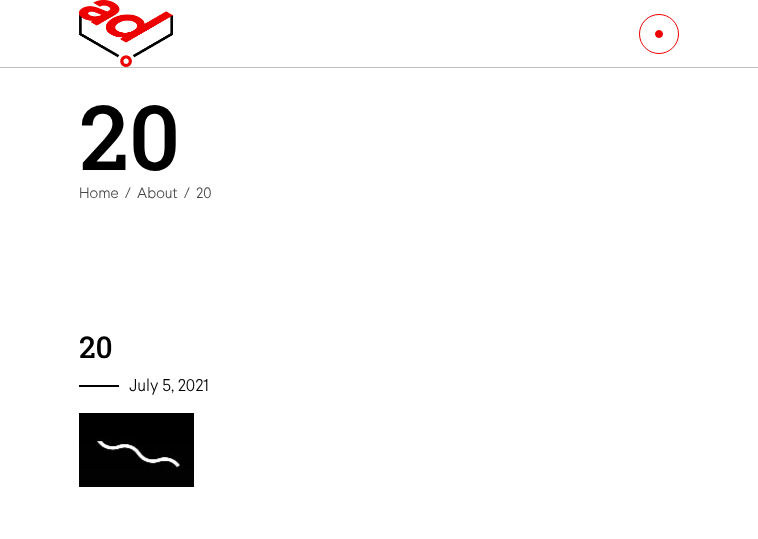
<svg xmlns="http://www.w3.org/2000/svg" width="758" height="539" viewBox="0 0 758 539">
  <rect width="100%" height="100%" fill="#fff"/>
  <path d="M0 67h758v1H0z" fill="#bfbfbf"/>
  <image x="79" y="0" width="94" height="67" href="img/1.png"/>
  <circle cx="659" cy="34" r="19.5" fill="none" stroke="#ed0101"/>
  <circle cx="659" cy="34" r="3.5" fill="#ed0101" stroke="#ed0101"/>
  <path d="M79 385h40v2H79z" fill="#000"/>
  <image x="79" y="413" width="115" height="74" href="img/2.png"/>
  <text x="79" y="170" font-family="Roboto Slab" font-size="90" font-weight="500" fill="#000">20</text>
  <g font-family="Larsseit" font-size="15" font-weight="300" fill="#464646">
    <text x="79" y="198">Home</text>
    <text x="125" y="198">/</text>
    <text x="137" y="198">About</text>
    <text x="184" y="198">/</text>
    <text x="196" y="198">20</text>
  </g>
  <text x="79" y="358" font-family="Roboto Slab" font-size="30" font-weight="500" fill="#000">20</text>
  <text x="129" y="391" font-family="Larsseit" font-size="17" font-weight="300" fill="#000">July 5, 2021</text>
</svg>
